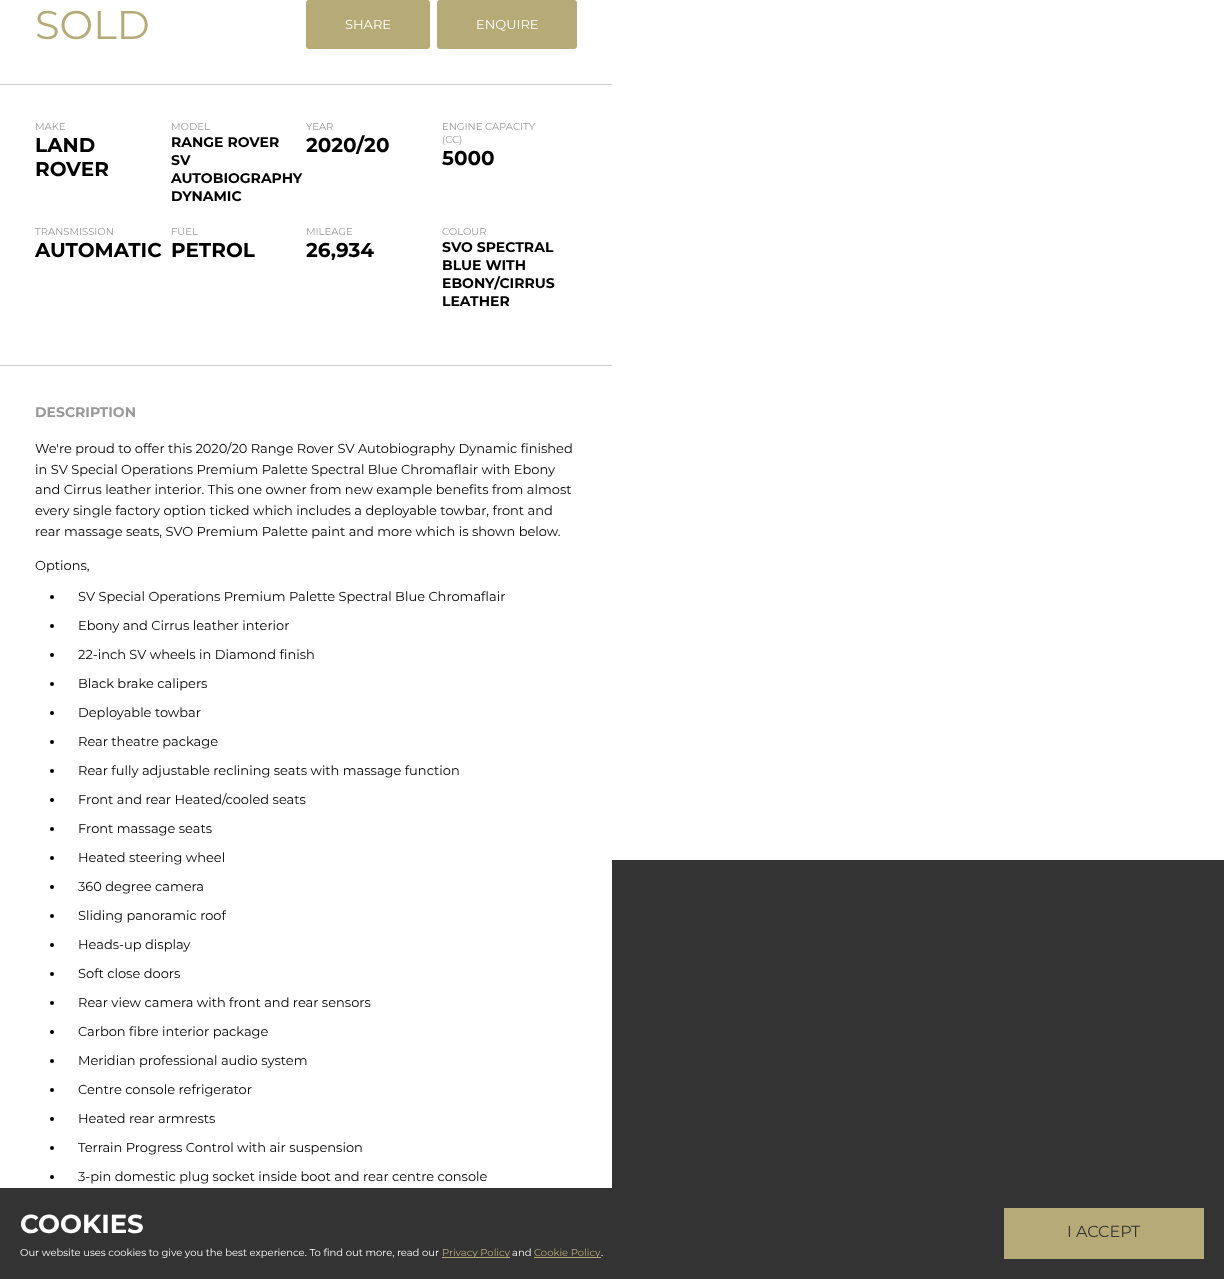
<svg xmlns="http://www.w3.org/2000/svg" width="1224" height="1279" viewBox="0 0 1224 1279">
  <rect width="100%" height="100%" fill="#fff"/>
  <path d="M0 84h612v1H0z" fill="#ccc"/>
  <rect x="306" width="124" height="49" rx="3" fill="#b6ab77"/>
  <rect x="437" width="140" height="49" rx="3" fill="#b6ab77"/>
  <path d="M0 365h612v1H0z" fill="#ccc"/>
  <circle cx="52" cy="597" r="2" fill="#000"/>
  <circle cx="52" cy="626" r="2" fill="#000"/>
  <circle cx="52" cy="655" r="2" fill="#000"/>
  <circle cx="52" cy="684" r="2" fill="#000"/>
  <circle cx="52" cy="713" r="2" fill="#000"/>
  <circle cx="52" cy="742" r="2" fill="#000"/>
  <circle cx="52" cy="771" r="2" fill="#000"/>
  <circle cx="52" cy="800" r="2" fill="#000"/>
  <circle cx="52" cy="829" r="2" fill="#000"/>
  <circle cx="52" cy="858" r="2" fill="#000"/>
  <circle cx="52" cy="887" r="2" fill="#000"/>
  <circle cx="52" cy="916" r="2" fill="#000"/>
  <circle cx="52" cy="945" r="2" fill="#000"/>
  <circle cx="52" cy="974" r="2" fill="#000"/>
  <circle cx="52" cy="1003" r="2" fill="#000"/>
  <circle cx="52" cy="1032" r="2" fill="#000"/>
  <circle cx="52" cy="1061" r="2" fill="#000"/>
  <circle cx="52" cy="1090" r="2" fill="#000"/>
  <circle cx="52" cy="1119" r="2" fill="#000"/>
  <circle cx="52" cy="1148" r="2" fill="#000"/>
  <circle cx="52" cy="1177" r="2" fill="#000"/>
  <path d="M612 860h612v65H612z" fill="#333"/>
  <path d="M612 925h612v65H612z" fill="#333"/>
  <path d="M612 990h612v65H612z" fill="#333"/>
  <path d="M612 1055h612v65H612z" fill="#333"/>
  <path d="M612 1120h612v65H612z" fill="#333"/>
  <path d="M612 1185h612v3H612z" fill="#333"/>
  <path d="M0 1188h1224v91H0z" fill="#333"/>
  <path d="M442 1257h68v1H442z" fill="#b6ab77"/>
  <path d="M534 1257h67v1H534z" fill="#b6ab77"/>
  <path d="M1004 1208h200v51H1004z" fill="#b6ab77"/>
  <text x="35" y="39" font-family="Montserrat" font-size="40" fill="#b6ab77">SOLD</text>
  <g font-family="Montserrat" font-size="13" fill="#fff">
    <text x="345" y="29">SHARE</text>
    <text x="476" y="29">ENQUIRE</text>
  </g>
  <text x="35" y="130" font-family="Montserrat" font-size="10" fill="#999">MAKE</text>
  <g font-family="Montserrat" font-size="20" font-weight="bold" fill="#000">
    <text x="35" y="152">LAND</text>
    <text x="35" y="176">ROVER</text>
  </g>
  <text x="171" y="130" font-family="Montserrat" font-size="10" fill="#999">MODEL</text>
  <g font-family="Montserrat" font-size="14" font-weight="bold" fill="#000">
    <text x="171" y="147">RANGE ROVER</text>
    <text x="171" y="165">SV</text>
    <text x="171" y="183">AUTOBIOGRAPHY</text>
    <text x="171" y="201">DYNAMIC</text>
  </g>
  <text x="306" y="130" font-family="Montserrat" font-size="10" fill="#999">YEAR</text>
  <text x="306" y="152" font-family="Montserrat" font-size="20" font-weight="bold" fill="#000">2020/20</text>
  <g font-family="Montserrat" font-size="10" fill="#999">
    <text x="442" y="130">ENGINE CAPACITY</text>
    <text x="442" y="143">(CC)</text>
  </g>
  <text x="442" y="165" font-family="Montserrat" font-size="20" font-weight="bold" fill="#000">5000</text>
  <text x="35" y="235" font-family="Montserrat" font-size="10" fill="#999">TRANSMISSION</text>
  <text x="35" y="257" font-family="Montserrat" font-size="20" font-weight="bold" fill="#000">AUTOMATIC</text>
  <text x="171" y="235" font-family="Montserrat" font-size="10" fill="#999">FUEL</text>
  <text x="171" y="257" font-family="Montserrat" font-size="20" font-weight="bold" fill="#000">PETROL</text>
  <text x="306" y="235" font-family="Montserrat" font-size="10" fill="#999">MILEAGE</text>
  <text x="306" y="257" font-family="Montserrat" font-size="20" font-weight="bold" fill="#000">26,934</text>
  <text x="442" y="235" font-family="Montserrat" font-size="10" fill="#999">COLOUR</text>
  <g font-family="Montserrat" font-size="14" font-weight="bold" fill="#000">
    <text x="442" y="252">SVO SPECTRAL</text>
    <text x="442" y="270">BLUE WITH</text>
    <text x="442" y="288">EBONY/CIRRUS</text>
    <text x="442" y="306">LEATHER</text>
  </g>
  <text x="35" y="417" font-family="Montserrat" font-size="14" font-weight="bold" fill="#999">DESCRIPTION</text>
  <g font-family="Montserrat" font-size="13" fill="#000">
    <text x="35" y="453">We're proud to offer this 2020/20 Range Rover SV Autobiography Dynamic finished</text>
    <text x="35" y="474">in SV Special Operations Premium Palette Spectral Blue Chromaflair with Ebony</text>
    <text x="35" y="494">and Cirrus leather interior. This one owner from new example benefits from almost</text>
    <text x="35" y="515">every single factory option ticked which includes a deployable towbar, front and</text>
    <text x="35" y="536">rear massage seats, SVO Premium Palette paint and more which is shown below.</text>
    <text x="35" y="570">Options,</text>
    <text x="78" y="601">SV Special Operations Premium Palette Spectral Blue Chromaflair</text>
    <text x="78" y="630">Ebony and Cirrus leather interior</text>
    <text x="78" y="659">22-inch SV wheels in Diamond finish</text>
    <text x="78" y="688">Black brake calipers</text>
    <text x="78" y="717">Deployable towbar</text>
    <text x="78" y="746">Rear theatre package</text>
    <text x="78" y="775">Rear fully adjustable reclining seats with massage function</text>
    <text x="78" y="804">Front and rear Heated/cooled seats</text>
    <text x="78" y="833">Front massage seats</text>
    <text x="78" y="862">Heated steering wheel</text>
    <text x="78" y="891">360 degree camera</text>
    <text x="78" y="920">Sliding panoramic roof</text>
    <text x="78" y="949">Heads-up display</text>
    <text x="78" y="978">Soft close doors</text>
    <text x="78" y="1007">Rear view camera with front and rear sensors</text>
    <text x="78" y="1036">Carbon fibre interior package</text>
    <text x="78" y="1065">Meridian professional audio system</text>
    <text x="78" y="1094">Centre console refrigerator</text>
    <text x="78" y="1123">Heated rear armrests</text>
    <text x="78" y="1152">Terrain Progress Control with air suspension</text>
    <text x="78" y="1181">3-pin domestic plug socket inside boot and rear centre console</text>
  </g>
  <text x="20" y="1233" font-family="Montserrat" font-size="26" font-weight="bold" fill="#fff">COOKIES</text>
  <text x="20" y="1256" font-family="Montserrat" font-size="10" fill="#fff">Our website uses cookies to give you the best experience. To find out more, read our</text>
  <text x="442" y="1256" font-family="Montserrat" font-size="10" fill="#b6ab77">Privacy Policy</text>
  <text x="512" y="1256" font-family="Montserrat" font-size="10" fill="#fff">and</text>
  <text x="534" y="1256" font-family="Montserrat" font-size="10" fill="#b6ab77">Cookie Policy</text>
  <text x="601" y="1256" font-family="Montserrat" font-size="10" fill="#fff">.</text>
  <text x="1067" y="1237" font-family="Montserrat" font-size="16" fill="#333">I ACCEPT</text>
</svg>
